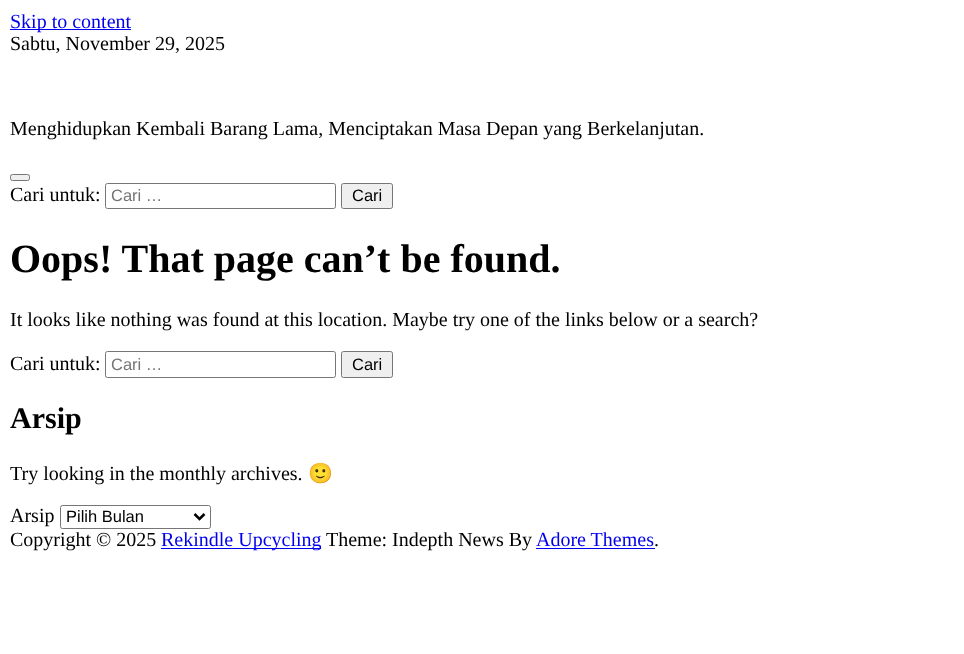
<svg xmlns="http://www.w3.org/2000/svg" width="964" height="654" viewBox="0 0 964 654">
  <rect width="100%" height="100%" fill="#fff"/>
  <path d="M10 29h121v1H10z" fill="#00e"/>
  <rect x="10.5" y="174.5" width="19" height="6" rx="2" fill="#efefef" stroke="#767676"/>
  <rect x="105.5" y="183.5" width="230" height="25" rx="2" fill="none" stroke="#767676"/>
  <rect x="341.5" y="183.5" width="51" height="25" rx="2" fill="#efefef" stroke="#767676"/>
  <rect x="105.5" y="351.5" width="230" height="26" rx="2" fill="none" stroke="#767676"/>
  <rect x="341.5" y="351.5" width="51" height="26" rx="2" fill="#efefef" stroke="#767676"/>
  <rect x="60.5" y="505.5" width="150" height="23" rx="2" fill="none" stroke="#767676"/>
  <path d="M194.5 514L199.5 519L204.5 514" fill="none" stroke="#000" stroke-width="2.5"/>
  <path d="M161 548h160v1H161z" fill="#00e"/>
  <path d="M536 548h119v1H536z" fill="#00e"/>
  <text x="10" y="28" font-family="Liberation Serif" font-size="20" fill="#00e">Skip to content</text>
  <g font-family="Liberation Serif" font-size="20" fill="#000">
    <text x="10" y="50">Sabtu, November 29, 2025</text>
    <text x="10" y="135">Menghidupkan Kembali Barang Lama, Menciptakan Masa Depan yang Berkelanjutan.</text>
    <text x="10" y="201">Cari untuk:</text>
  </g>
  <text x="111" y="201" font-family="Liberation Sans" font-size="16.5" fill="#757575">Cari …</text>
  <text x="352" y="201" font-family="Liberation Sans" font-size="16.5" fill="#000">Cari</text>
  <text x="10" y="272" font-family="Liberation Serif" font-size="40" font-weight="bold" fill="#000">Oops! That page can’t be found.</text>
  <g font-family="Liberation Serif" font-size="20" fill="#000">
    <text x="10" y="326">It looks like nothing was found at this location. Maybe try one of the links below or a search?</text>
    <text x="10" y="370">Cari untuk:</text>
  </g>
  <text x="111" y="370" font-family="Liberation Sans" font-size="16.5" fill="#757575">Cari …</text>
  <text x="352" y="370" font-family="Liberation Sans" font-size="16.5" fill="#000">Cari</text>
  <text x="10" y="428" font-family="Liberation Serif" font-size="30" font-weight="bold" fill="#000">Arsip</text>
  <text x="10" y="480" font-family="Liberation Serif" font-size="20" fill="#000">Try looking in the monthly archives.</text>
  <text x="308" y="480" font-family="Noto Color Emoji" font-size="20" fill="#000">🙂</text>
  <text x="10" y="522" font-family="Liberation Serif" font-size="20" fill="#000">Arsip</text>
  <text x="66" y="522" font-family="Liberation Sans" font-size="16.5" fill="#000">Pilih Bulan</text>
  <text x="10" y="546" font-family="Liberation Serif" font-size="20" fill="#000">Copyright © 2025</text>
  <text x="161" y="546" font-family="Liberation Serif" font-size="20" fill="#00e">Rekindle Upcycling</text>
  <text x="326" y="546" font-family="Liberation Serif" font-size="20" fill="#000">Theme: Indepth News By</text>
  <text x="536" y="546" font-family="Liberation Serif" font-size="20" fill="#00e">Adore Themes</text>
  <text x="654" y="546" font-family="Liberation Serif" font-size="20" fill="#000">.</text>
</svg>
